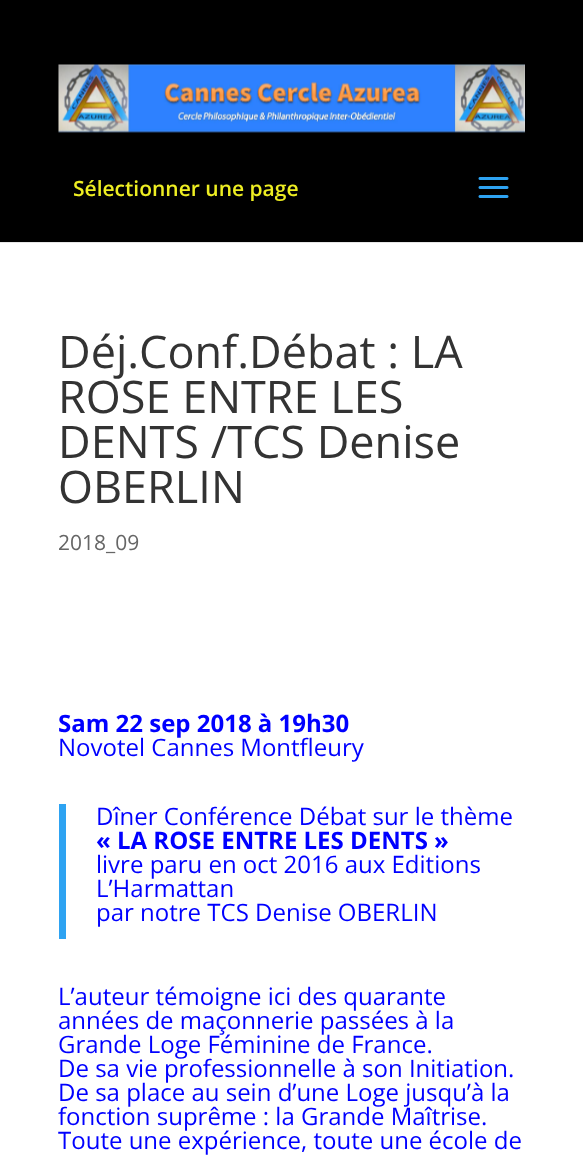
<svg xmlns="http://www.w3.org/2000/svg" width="583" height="1160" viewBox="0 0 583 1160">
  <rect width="100%" height="100%" fill="#fff"/>
  <path d="M0 242V243H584V2V242Z" fill="#e6e6e6"/>
  <path d="M0 0h583v242H0z" fill="#000"/>
  <image x="58" y="64" width="467" height="69" href="img/1.png"/>
  <image x="478" y="177" width="31" height="21" href="img/2.png"/>
  <path d="M59 804h7v135H59z" fill="#2ea3f2"/>
  <text x="73" y="196" font-family="Open Sans" font-size="21" font-weight="600" fill="#ee2">Sélectionner une page</text>
  <g font-family="Open Sans" font-size="45" fill="#333">
    <text x="58" y="368">Déj.Conf.Débat : LA</text>
    <text x="58" y="413">ROSE ENTRE LES</text>
    <text x="58" y="458">DENTS /TCS Denise</text>
    <text x="58" y="503">OBERLIN</text>
  </g>
  <text x="58" y="550" font-family="Open Sans" font-size="21" fill="#666">2018_09</text>
  <text x="58" y="732" font-family="Open Sans" font-size="24" font-weight="bold" fill="#00f">Sam 22 sep 2018 à 19h30</text>
  <g font-family="Open Sans" font-size="24" fill="#00f">
    <text x="58" y="756">Novotel Cannes Montfleury</text>
    <text x="96" y="825">Dîner Conférence Débat sur le thème</text>
  </g>
  <text x="96" y="849" font-family="Open Sans" font-size="24" font-weight="bold" fill="#00f">« LA ROSE ENTRE LES DENTS »</text>
  <g font-family="Open Sans" font-size="24" fill="#00f">
    <text x="96" y="873">livre paru en oct 2016 aux Editions</text>
    <text x="96" y="897">L’Harmattan</text>
    <text x="96" y="921">par notre TCS Denise OBERLIN</text>
    <text x="58" y="1005">L’auteur témoigne ici des quarante</text>
    <text x="58" y="1029">années de maçonnerie passées à la</text>
    <text x="58" y="1053">Grande Loge Féminine de France.</text>
    <text x="58" y="1077">De sa vie professionnelle à son Initiation.</text>
    <text x="58" y="1101">De sa place au sein d’une Loge jusqu’à la</text>
    <text x="58" y="1125">fonction suprême : la Grande Maîtrise.</text>
    <text x="58" y="1149">Toute une expérience, toute une école de</text>
  </g>
</svg>
